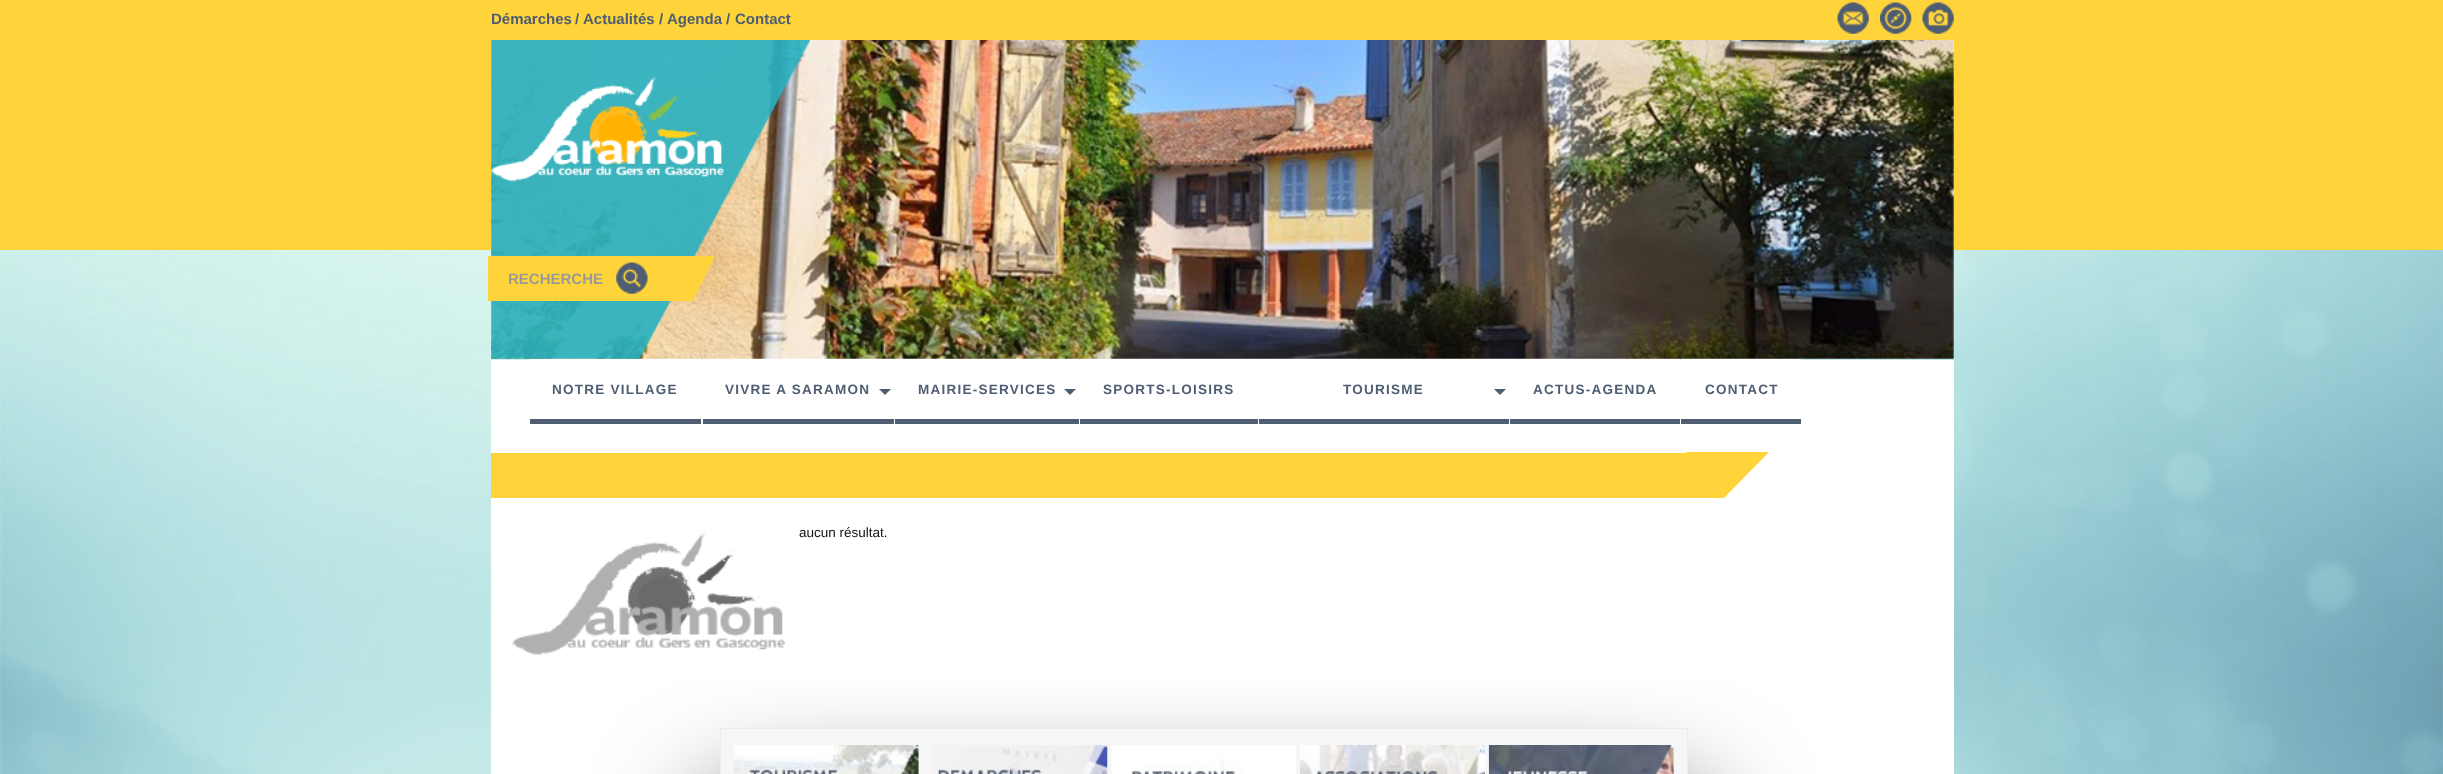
<svg xmlns="http://www.w3.org/2000/svg" width="2443" height="774" viewBox="0 0 2443 774">
  <defs>
    <clipPath id="clip1"><path d="M488 256h1462v45H488z"/></clipPath>
  </defs>
  <rect width="100%" height="100%" fill="#fff"/>
  <image x="0" y="250" width="2443" height="524" href="img/1.png"/>
  <path d="M0 0h2443v250H0z" fill="#ffd43a"/>
  <image x="1837" y="2" width="32" height="32" href="img/2.png"/>
  <image x="1880" y="2" width="32" height="32" href="img/3.png"/>
  <image x="1922" y="2" width="32" height="32" href="img/4.png"/>
  <path d="M491 40h1463v319H491z" fill="#fff"/>
  <image x="491" y="40" width="1463" height="319" href="img/5.png"/>
  <image x="491" y="40" width="319" height="319" href="img/6.png"/>
  <image x="491" y="76" width="233" height="106" href="img/7.png"/>
  <path d="M488 256h168v45H488z" fill="#ffd43a"/>
  <image x="616" y="262" width="32" height="32" href="img/8.png"/>
  <g clip-path="url(#clip1)">
    <path d="M656 256H715L684 319H656Z" fill="#ffd43a"/>
  </g>
  <path d="M491 360h1463v414H491z" fill="#fff"/>
  <path d="M530 419h171v5H530z" fill="#4f5d73"/>
  <path d="M530 359h171v1H530z" fill="#fff"/>
  <path d="M703 419h191v5H703z" fill="#4f5d73"/>
  <path d="M703 359h191v1H703z" fill="#fff"/>
  <path d="M879 389H891L885 395Z" fill="#4f5d73"/>
  <path d="M895 419h184v5H895z" fill="#4f5d73"/>
  <path d="M895 359h184v1H895z" fill="#fff"/>
  <path d="M1064 389H1076L1070 395Z" fill="#4f5d73"/>
  <path d="M1080 419h178v5H1080z" fill="#4f5d73"/>
  <path d="M1080 359h178v1H1080z" fill="#fff"/>
  <path d="M1259 419h250v5H1259z" fill="#4f5d73"/>
  <path d="M1259 359h250v1H1259z" fill="#fff"/>
  <path d="M1494 389H1506L1500 395Z" fill="#4f5d73"/>
  <path d="M1510 419h170v5H1510z" fill="#4f5d73"/>
  <path d="M1510 359h170v1H1510z" fill="#fff"/>
  <path d="M1681 419h120v5H1681z" fill="#4f5d73"/>
  <path d="M1681 359h120v1H1681z" fill="#fff"/>
  <path d="M720 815h968v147H720z" fill="#000" filter="blur(62.5px)"/>
  <rect x="491" y="453" width="1463" height="225" rx="6" fill="#fff"/>
  <path d="M491 453h1195v45H491z" fill="#ffd43a"/>
  <path d="M1686 452H1769L1724 498H1686Z" fill="#ffd43a"/>
  <image x="512" y="532" width="273" height="123" href="img/9.png"/>
  <path d="M720.5 728.5h967v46H720.5z" fill="#f6f6f6" stroke="#ececec"/>
  <image x="734" y="745" width="185" height="29" href="img/10.png"/>
  <image x="932" y="745" width="176" height="29" href="img/11.png"/>
  <image x="1111" y="745" width="185" height="29" href="img/12.png"/>
  <image x="1300" y="745" width="185" height="29" href="img/13.png"/>
  <image x="1488" y="745" width="186" height="29" href="img/14.png"/>
  <g font-family="Liberation Sans" font-size="15" font-weight="bold" fill="#4e5d72">
    <text x="491" y="24">Démarches</text>
    <text x="575" y="24">/</text>
    <text x="583" y="24">Actualités</text>
    <text x="659" y="24">/</text>
    <text x="667" y="24">Agenda</text>
    <text x="726" y="24">/</text>
    <text x="735" y="24">Contact</text>
  </g>
  <text x="508" y="284" font-family="Liberation Sans" font-size="15" font-weight="bold" fill="#999">RECHERCHE</text>
  <g font-family="Liberation Sans" font-size="13.5" font-weight="bold" letter-spacing="1.25" fill="#4e5d72">
    <text x="552" y="394">NOTRE VILLAGE</text>
    <text x="725" y="394">VIVRE A SARAMON</text>
    <text x="918" y="394">MAIRIE-SERVICES</text>
    <text x="1103" y="394">SPORTS-LOISIRS</text>
    <text x="1343" y="394">TOURISME</text>
    <text x="1533" y="394">ACTUS-AGENDA</text>
    <text x="1705" y="394">CONTACT</text>
  </g>
  <text x="799" y="537" font-family="Liberation Sans" font-size="13.5" fill="#111">aucun résultat.</text>
</svg>
